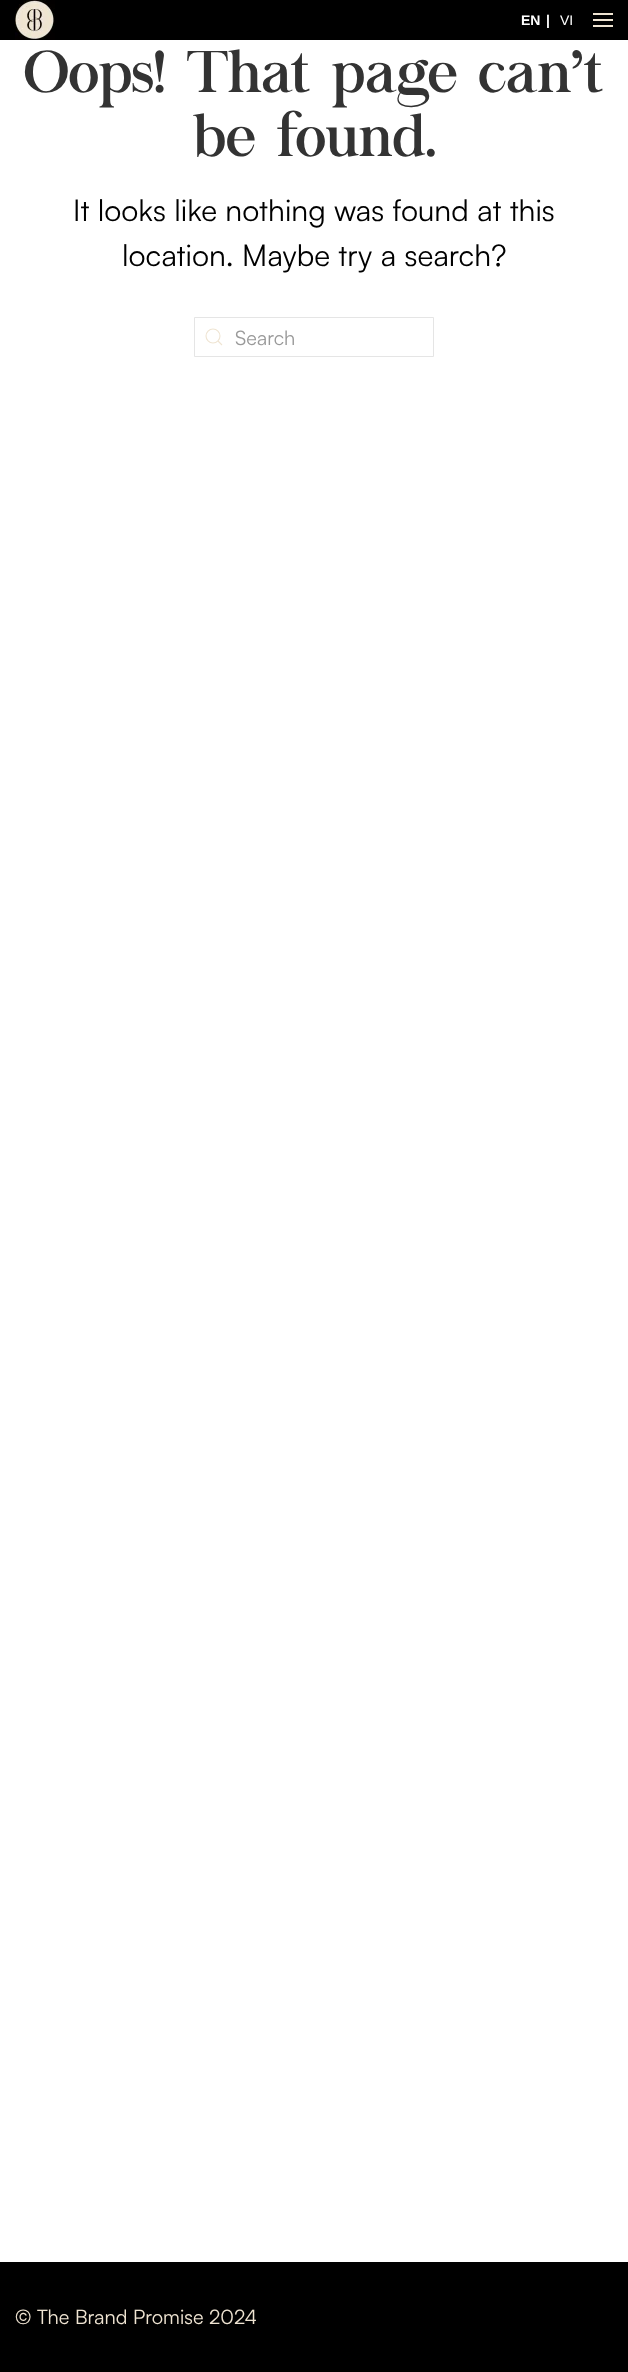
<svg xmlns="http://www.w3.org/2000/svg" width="628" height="2372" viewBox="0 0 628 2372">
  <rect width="100%" height="100%" fill="#fff"/>
  <path d="M0 0h628v40H0z" fill="#000"/>
  <image x="15" y="0" width="40" height="40" href="img/1.png"/>
  <path d="M593 13h20v2H593z" fill="#efe4d2"/>
  <path d="M593 19h20v2H593z" fill="#efe4d2"/>
  <path d="M593 25h20v2H593z" fill="#efe4d2"/>
  <path d="M194.5 317.5h239v39H194.5z" fill="none" stroke="#e5e5e5"/>
  <circle cx="213" cy="336" r="7" fill="none" stroke="#efe4d2" stroke-width="1.1"/>
  <path d="M218 341L222 345Z" fill="none" stroke="#efe4d2" stroke-width="1.1"/>
  <path d="M0 2262h628v110H0z" fill="#000"/>
  <g font-family="Liberation Sans" font-size="14" font-weight="bold" fill="#fff">
    <text x="521" y="25">EN</text>
    <text x="546" y="25">|</text>
  </g>
  <text x="560" y="25" font-family="Liberation Sans" font-size="14" fill="#fff">VI</text>
  <g font-family="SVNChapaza" font-size="57.75" fill="#333">
    <text x="24" y="92">Oops! That page can’t</text>
    <text x="193" y="156">be found.</text>
  </g>
  <g font-family="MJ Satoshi" font-size="30" fill="#000">
    <text x="73" y="221">It looks like nothing was found at this</text>
    <text x="122" y="266">location. Maybe try a search?</text>
  </g>
  <text x="235" y="345" font-family="MJ Satoshi" font-size="20" fill="#999">Search</text>
  <text x="15" y="2324" font-family="MJ Satoshi" font-size="20" fill="#efe4d2">© The Brand Promise 2024</text>
</svg>
